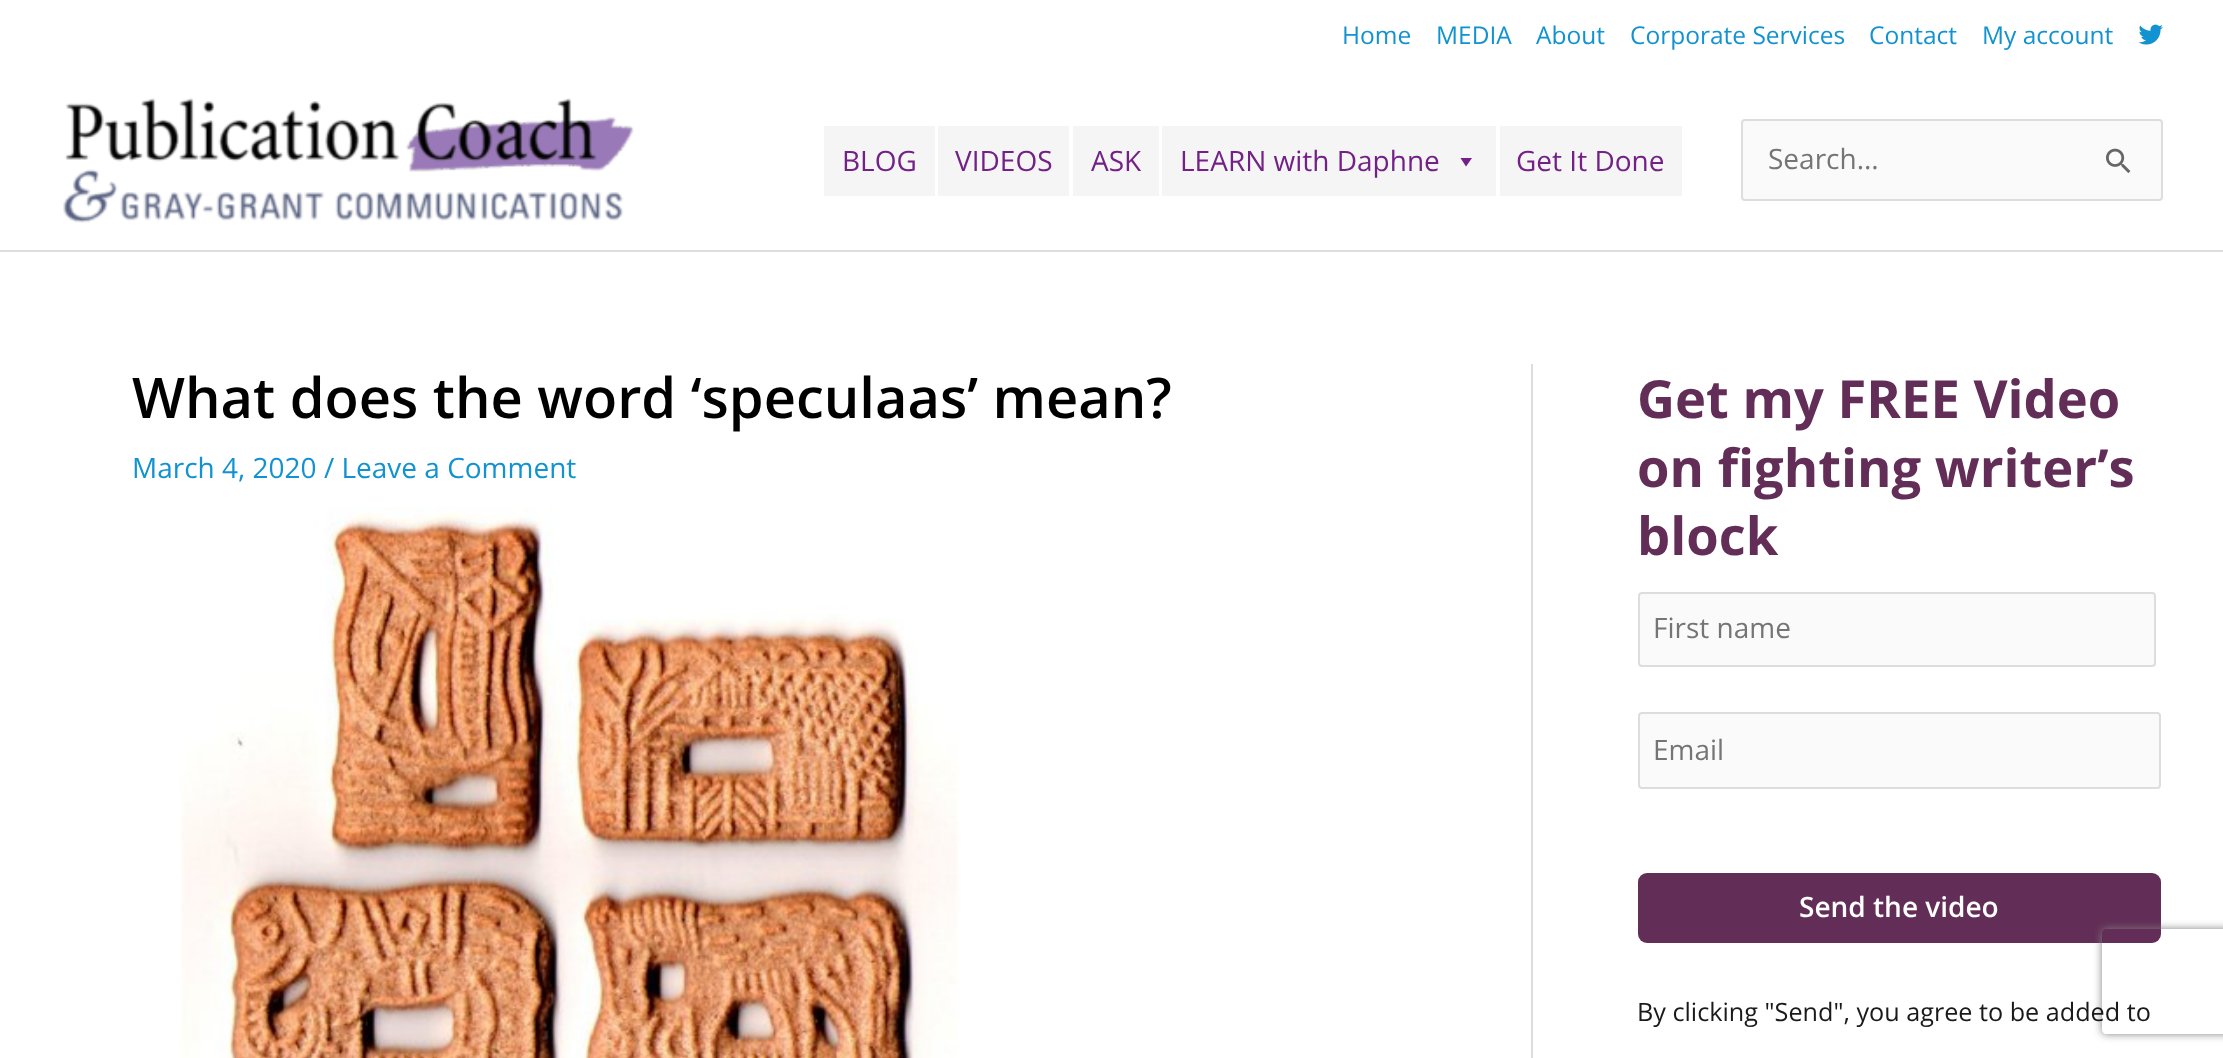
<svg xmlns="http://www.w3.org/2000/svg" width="2223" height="1058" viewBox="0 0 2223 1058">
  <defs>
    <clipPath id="clip1"><path d="M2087 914H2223V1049H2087ZM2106 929H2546C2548 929 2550 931 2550 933V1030C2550 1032 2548 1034 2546 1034H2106C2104 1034 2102 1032 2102 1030V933C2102 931 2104 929 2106 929Z" clip-rule="evenodd"/></clipPath>
  </defs>
  <rect width="100%" height="100%" fill="#fff"/>
  <image x="2138" y="24" width="25" height="21" href="img/1.png"/>
  <path d="M0 250h2223v2H0z" fill="#ddd"/>
  <image x="63" y="98" width="571" height="125" href="img/2.png"/>
  <path d="M824 126h111v70H824z" fill="#f5f5f5"/>
  <path d="M938 126h131v70H938z" fill="#f5f5f5"/>
  <path d="M1073 126h86v70H1073z" fill="#f5f5f5"/>
  <path d="M1162 126h334v70H1162z" fill="#f5f5f5"/>
  <path d="M1472 158L1466 166.5L1460.5 158Z" fill="#732186"/>
  <path d="M1500 126h182v70H1500z" fill="#f5f5f5"/>
  <rect x="1742" y="120" width="420" height="80" rx="3" fill="#fafafa" stroke="#ddd" stroke-width="2"/>
  <image x="2106" y="148" width="25" height="25" href="img/3.png"/>
  <path d="M1531 364h2v694H1531z" fill="#ddd"/>
  <image x="180" y="507" width="779" height="551" href="img/4.png"/>
  <rect x="1639" y="593" width="516" height="73" rx="3" fill="#fafafa" stroke="#ddd" stroke-width="2"/>
  <rect x="1639" y="713" width="521" height="75" rx="3" fill="#fafafa" stroke="#ddd" stroke-width="2"/>
  <rect x="1638" y="873" width="523" height="70" rx="9" fill="#622d57"/>
  <g clip-path="url(#clip1)">
    <rect x="2102" y="929" width="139" height="105" rx="4" fill="#808080" filter="blur(4.5px)"/>
  </g>
  <g font-family="Open Sans" font-size="24.5" fill="#1192d1">
    <text x="1342" y="44">Home</text>
    <text x="1436" y="44">MEDIA</text>
    <text x="1536" y="44">About</text>
    <text x="1630" y="44">Corporate Services</text>
    <text x="1869" y="44">Contact</text>
    <text x="1982" y="44">My account</text>
  </g>
  <g font-family="Open Sans" font-size="28" fill="#732186">
    <text x="842" y="171">BLOG</text>
    <text x="955" y="171">VIDEOS</text>
    <text x="1091" y="171">ASK</text>
    <text x="1180" y="171">LEARN with Daphne</text>
    <text x="1516" y="171">Get It Done</text>
  </g>
  <text x="1768" y="169" font-family="Open Sans" font-size="28" fill="#757575">Search...</text>
  <text x="132" y="418" font-family="Open Sans" font-size="56" font-weight="600" fill="#000">What does the word ‘speculaas’ mean?</text>
  <text x="132" y="478" font-family="Open Sans" font-size="28" fill="#1192d1">March 4, 2020 / Leave a Comment</text>
  <g font-family="Open Sans" font-size="52.5" font-weight="bold" fill="#622d57">
    <text x="1637" y="418">Get my FREE Video</text>
    <text x="1637" y="487">on fighting writer’s</text>
    <text x="1637" y="555">block</text>
  </g>
  <g font-family="Open Sans" font-size="28" fill="#757575">
    <text x="1653" y="638">First name</text>
    <text x="1653" y="760">Email</text>
  </g>
  <text x="1799" y="917" font-family="Open Sans" font-size="28" font-weight="600" fill="#fff">Send the video</text>
  <text x="1637" y="1021" font-family="Open Sans" font-size="25.2" fill="#1a1a1a">By clicking "Send", you agree to be added to</text>
</svg>
